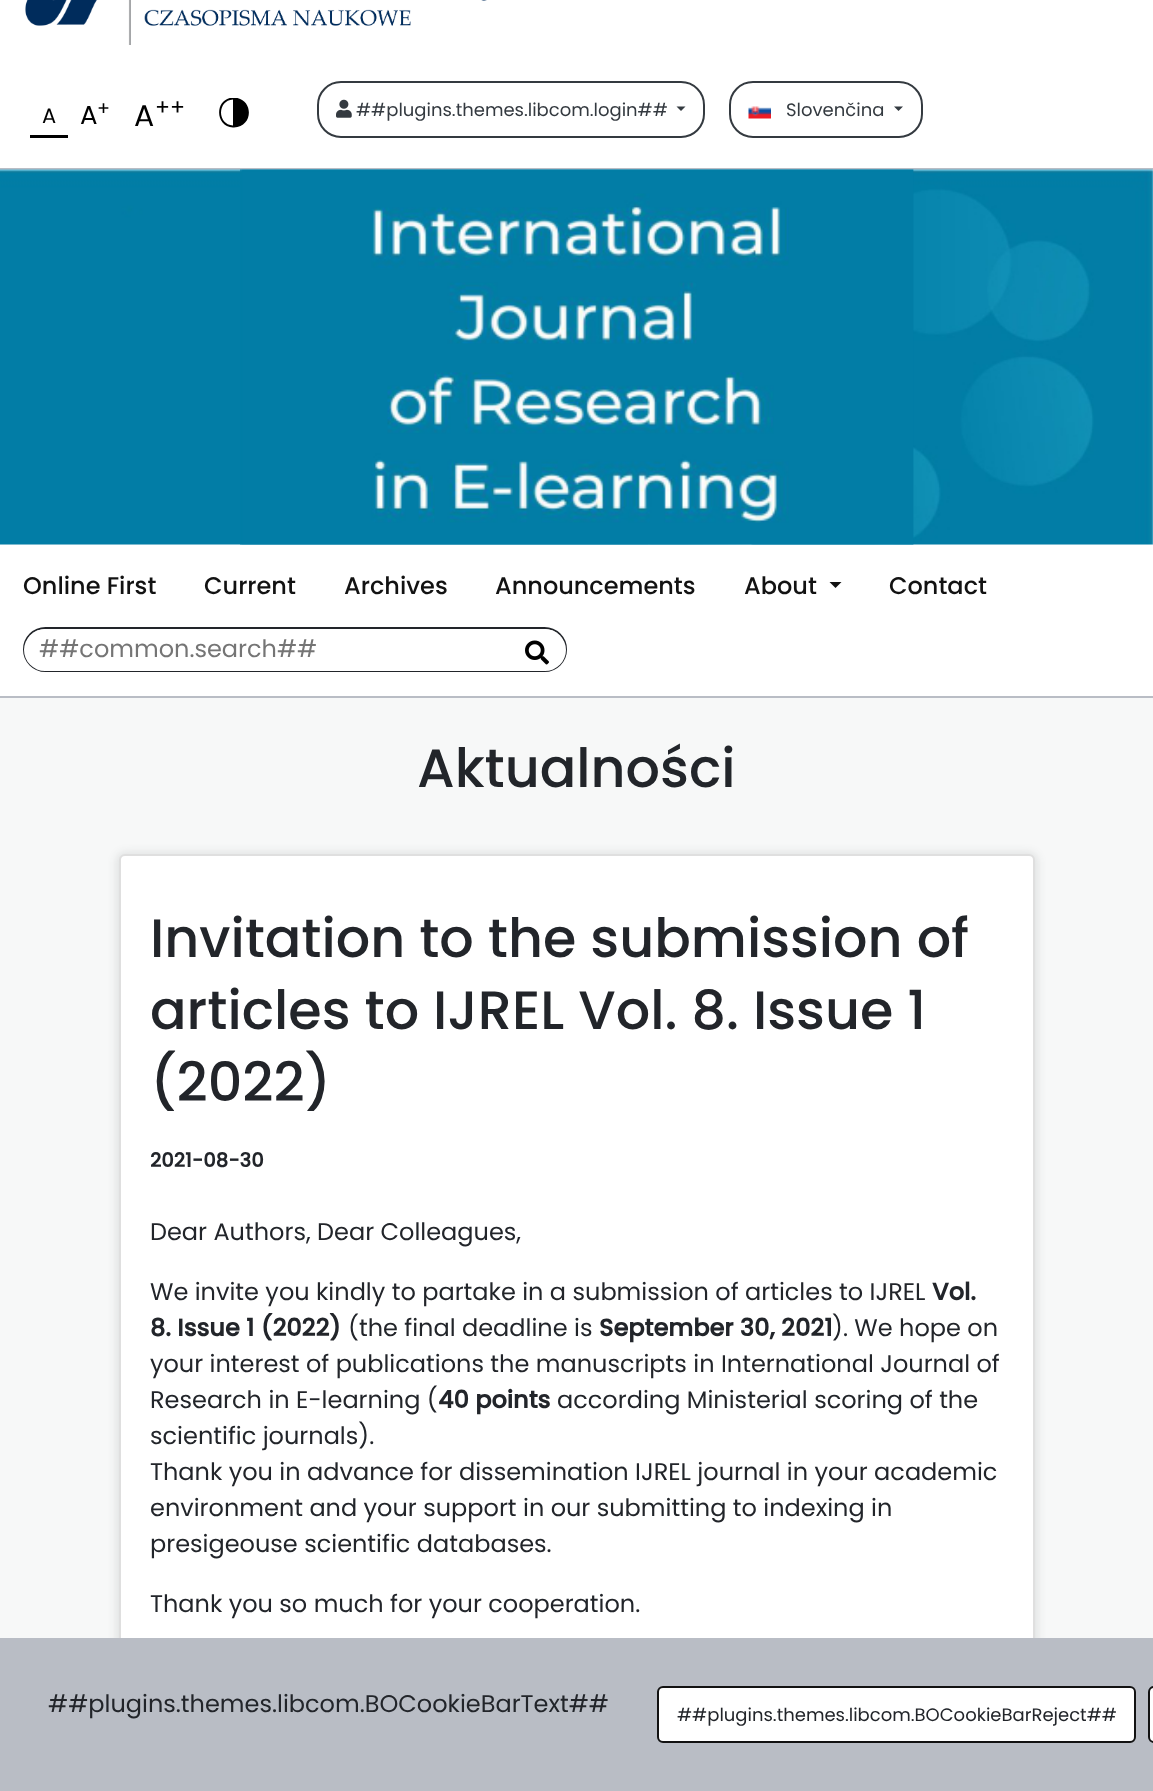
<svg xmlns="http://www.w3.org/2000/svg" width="1153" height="1791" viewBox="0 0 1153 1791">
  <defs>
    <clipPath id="clip1"><path d="M219 98h30v30H219z"/></clipPath>
  </defs>
  <rect width="100%" height="100%" fill="#f7f8f8"/>
  <path d="M0 0h1153v168H0z" fill="#fff"/>
  <path d="M0 168h1153v2H0z" fill="#b9bdc5"/>
  <image x="25" y="0" width="462" height="45" href="img/1.png"/>
  <path d="M30 135h38v3H30z" fill="#000"/>
  <g clip-path="url(#clip1)">
    <path d="M234 127.5H233C214.5 126.5 214.5 98.5 233 97.5C254 97.5 254 127 234 127.5ZM233 125.5V99.5C217 100.5 217 124.5 233 125.5Z" fill="#000"/>
  </g>
  <rect x="318" y="82" width="386" height="55" rx="23" fill="none" stroke="#343a40" stroke-width="2"/>
  <image x="336" y="99" width="16" height="19" href="img/2.png"/>
  <path d="M676.5 106.5H685.5L681 111Z" fill="#343a40"/>
  <rect x="730" y="82" width="192" height="55" rx="23" fill="none" stroke="#343a40" stroke-width="2"/>
  <image x="748" y="106" width="23" height="13" href="img/3.png"/>
  <path d="M894 106.5H903L898.5 111Z" fill="#343a40"/>
  <image x="0" y="169" width="1153" height="376" href="img/4.png"/>
  <image x="240" y="169" width="674" height="376" href="img/5.png"/>
  <path d="M0 545h1153v151H0z" fill="#fff"/>
  <path d="M0 696h1153v2H0z" fill="#b9bdc5"/>
  <path d="M829.5 582H841.5L835.5 588Z" fill="#121212"/>
  <rect x="24" y="628" width="542" height="43" rx="21.5" fill="none" stroke="#22252a" stroke-width="2"/>
  <rect x="24" y="629" width="542" height="42" rx="21" fill="#fff"/>
  <image x="525" y="640" width="24" height="25" href="img/6.png"/>
  <rect x="116" y="852" width="922" height="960" rx="9" fill="#22252a1a" filter="blur(4px)"/>
  <rect x="120" y="855" width="914" height="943" rx="5" fill="#fff" stroke="#dfdfdf" stroke-width="2"/>
  <path d="M0 1638h1153v153H0z" fill="#b9bdc5"/>
  <rect x="658" y="1687" width="477" height="55" rx="5" fill="#fff" stroke="#121212" stroke-width="2"/>
  <rect x="1149" y="1687" width="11" height="55" rx="5" fill="#fff" stroke="#121212" stroke-width="2"/>
  <text x="42" y="123" font-family="Poppins" font-size="21" fill="#000">A</text>
  <text x="80" y="124" font-family="Poppins" font-size="26" fill="#000">A</text>
  <text x="97" y="115" font-family="Poppins" font-size="19" fill="#000">+</text>
  <text x="134" y="126" font-family="Poppins" font-size="30" fill="#000">A</text>
  <text x="155" y="115" font-family="Poppins" font-size="22" fill="#000">++</text>
  <g font-family="Poppins" font-size="18" fill="#343a40">
    <text x="356" y="116">##plugins.themes.libcom.login##</text>
    <text x="786" y="116">Slovenčina</text>
  </g>
  <g font-family="Poppins" font-size="24" font-weight="500" fill="#121212">
    <text x="23" y="594">Online First</text>
    <text x="204" y="594">Current</text>
    <text x="344" y="594">Archives</text>
    <text x="495" y="594">Announcements</text>
    <text x="744" y="594">About</text>
    <text x="889" y="594">Contact</text>
  </g>
  <text x="39" y="657" font-family="Poppins" font-size="24" fill="#757575">##common.search##</text>
  <g font-family="Poppins" font-size="54" font-weight="500" fill="#22252a">
    <text x="417" y="787">Aktualności</text>
    <text x="150" y="957">Invitation to the submission of</text>
    <text x="150" y="1029">articles to IJREL Vol. 8. Issue 1</text>
    <text x="150" y="1101">(2022)</text>
  </g>
  <text x="150" y="1167" font-family="Poppins" font-size="19.5" font-weight="bold" fill="#22252a">2021-08-30</text>
  <g font-family="Poppins" font-size="24" fill="#22252a">
    <text x="150" y="1240">Dear Authors, Dear Colleagues,</text>
    <text x="150" y="1300">We invite you kindly to partake in a submission of articles to IJREL</text>
  </g>
  <g font-family="Poppins" font-size="24" font-weight="bold" fill="#22252a">
    <text x="932" y="1300">Vol.</text>
    <text x="150" y="1336">8. Issue 1 (2022)</text>
  </g>
  <text x="348" y="1336" font-family="Poppins" font-size="24" fill="#22252a">(the final deadline is</text>
  <text x="599" y="1336" font-family="Poppins" font-size="24" font-weight="bold" fill="#22252a">September 30, 2021</text>
  <g font-family="Poppins" font-size="24" fill="#22252a">
    <text x="832" y="1336">). We hope on</text>
    <text x="150" y="1372">your interest of publications the manuscripts in International Journal of</text>
    <text x="150" y="1408">Research in E-learning (</text>
  </g>
  <text x="438" y="1408" font-family="Poppins" font-size="24" font-weight="bold" fill="#22252a">40 points</text>
  <g font-family="Poppins" font-size="24" fill="#22252a">
    <text x="557" y="1408">according Ministerial scoring of the</text>
    <text x="150" y="1444">scientific journals).</text>
    <text x="150" y="1480">Thank you in advance for dissemination IJREL journal in your academic</text>
    <text x="150" y="1516">environment and your support in our submitting to indexing in</text>
    <text x="150" y="1552">presigeouse scientific databases.</text>
    <text x="150" y="1612">Thank you so much for your cooperation.</text>
    <text x="48" y="1712">##plugins.themes.libcom.BOCookieBarText##</text>
  </g>
  <text x="677" y="1721" font-family="Poppins" font-size="18" fill="#22252a">##plugins.themes.libcom.BOCookieBarReject##</text>
</svg>
